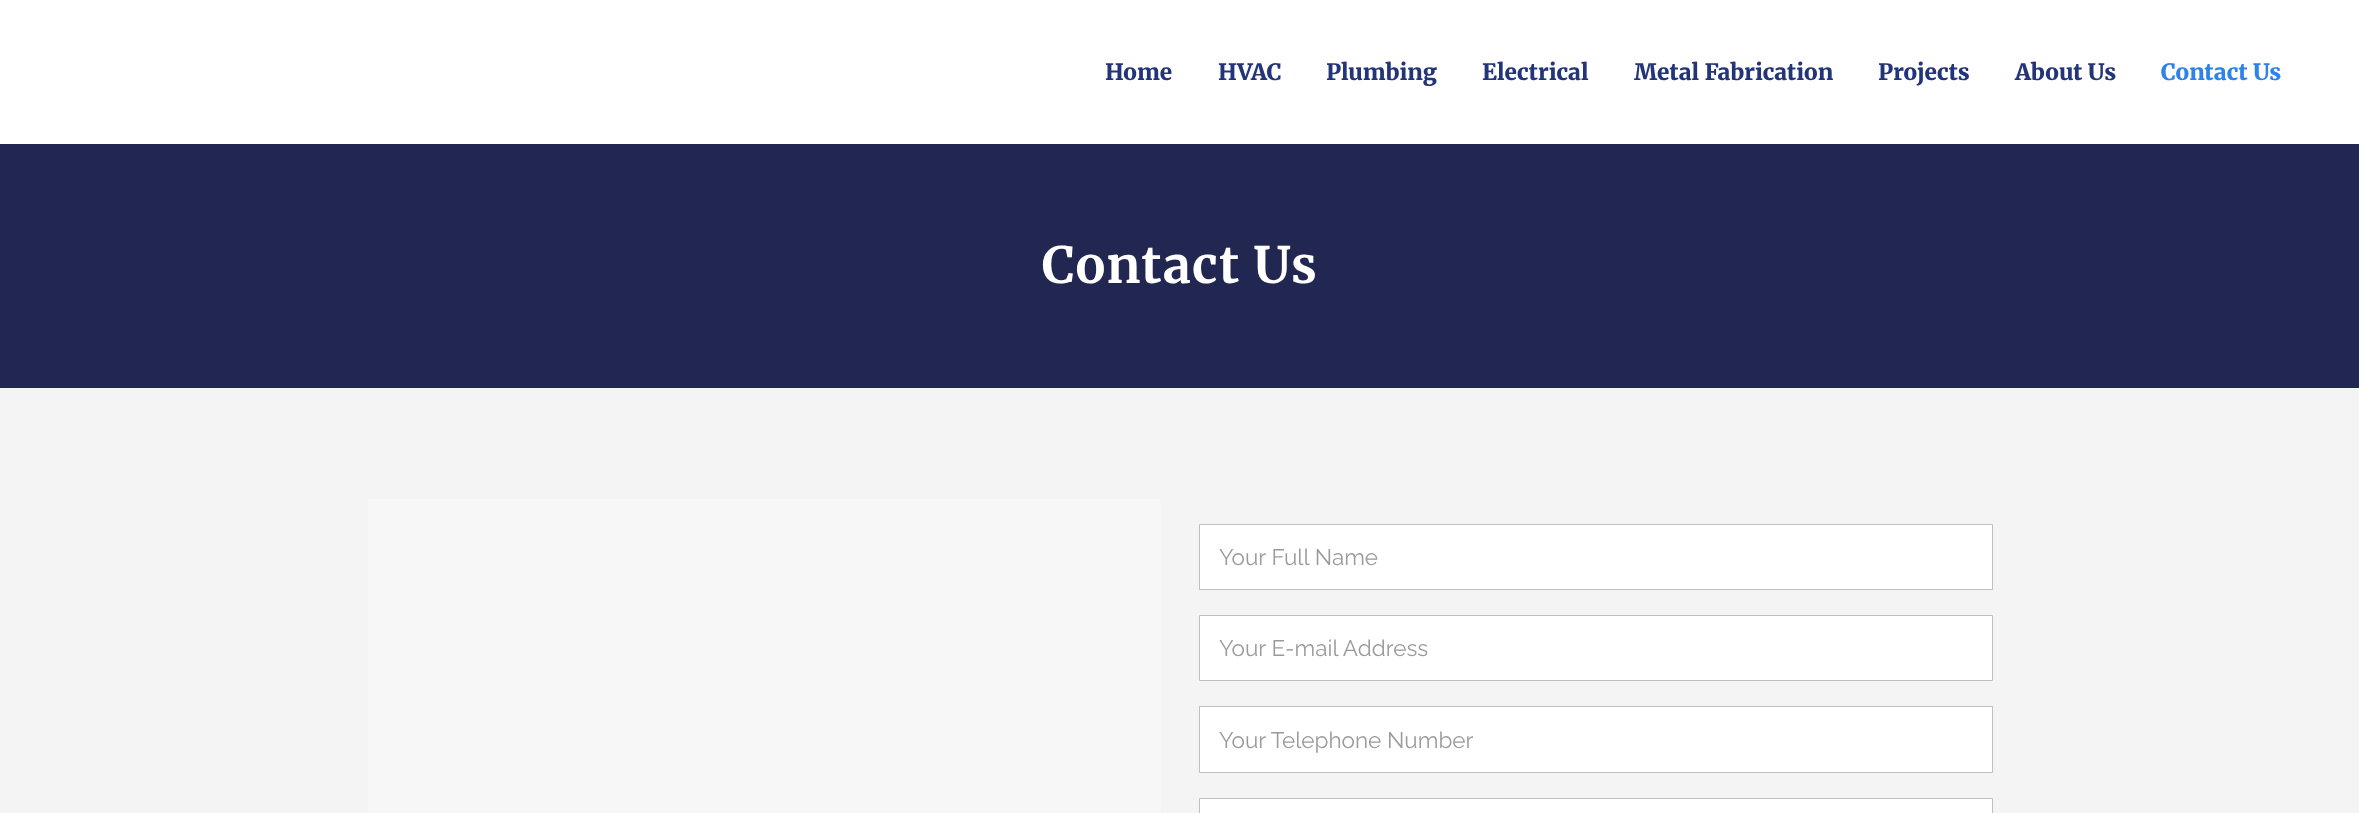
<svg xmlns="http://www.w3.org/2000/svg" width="2359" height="813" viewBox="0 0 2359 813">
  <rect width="100%" height="100%" fill="#f4f4f4"/>
  <path d="M0 0h2359v144H0z" fill="#fff"/>
  <path d="M0 144h2359v244H0z" fill="#212751"/>
  <path d="M368 499h793v314H368z" fill="#f7f7f7"/>
  <path d="M1199.5 524.5h793v65H1199.5z" fill="#fff" stroke="#bfbfbf"/>
  <path d="M1199.5 615.5h793v65H1199.5z" fill="#fff" stroke="#bfbfbf"/>
  <path d="M1199.5 706.5h793v66H1199.5z" fill="#fff" stroke="#bfbfbf"/>
  <path d="M1199.5 798.5h793v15H1199.5z" fill="#fff" stroke="#bfbfbf"/>
  <g font-family="Merriweather" font-size="22.5" font-weight="900" fill="#233478">
    <text x="1105" y="80">Home</text>
    <text x="1218" y="80">HVAC</text>
    <text x="1326" y="80">Plumbing</text>
    <text x="1482" y="80">Electrical</text>
    <text x="1634" y="80">Metal Fabrication</text>
    <text x="1878" y="80">Projects</text>
    <text x="2015" y="80">About Us</text>
  </g>
  <text x="2161" y="80" font-family="Merriweather" font-size="22.5" font-weight="900" fill="#2e82ea">Contact Us</text>
  <text x="1042" y="283" font-family="Merriweather" font-size="50" font-weight="bold" letter-spacing="1.25" fill="#fff">Contact Us</text>
  <g font-family="Raleway" font-size="22.5" fill="#9b9b9b">
    <text x="1219" y="565">Your Full Name</text>
    <text x="1219" y="656">Your E-mail Address</text>
    <text x="1219" y="748">Your Telephone Number</text>
  </g>
</svg>
